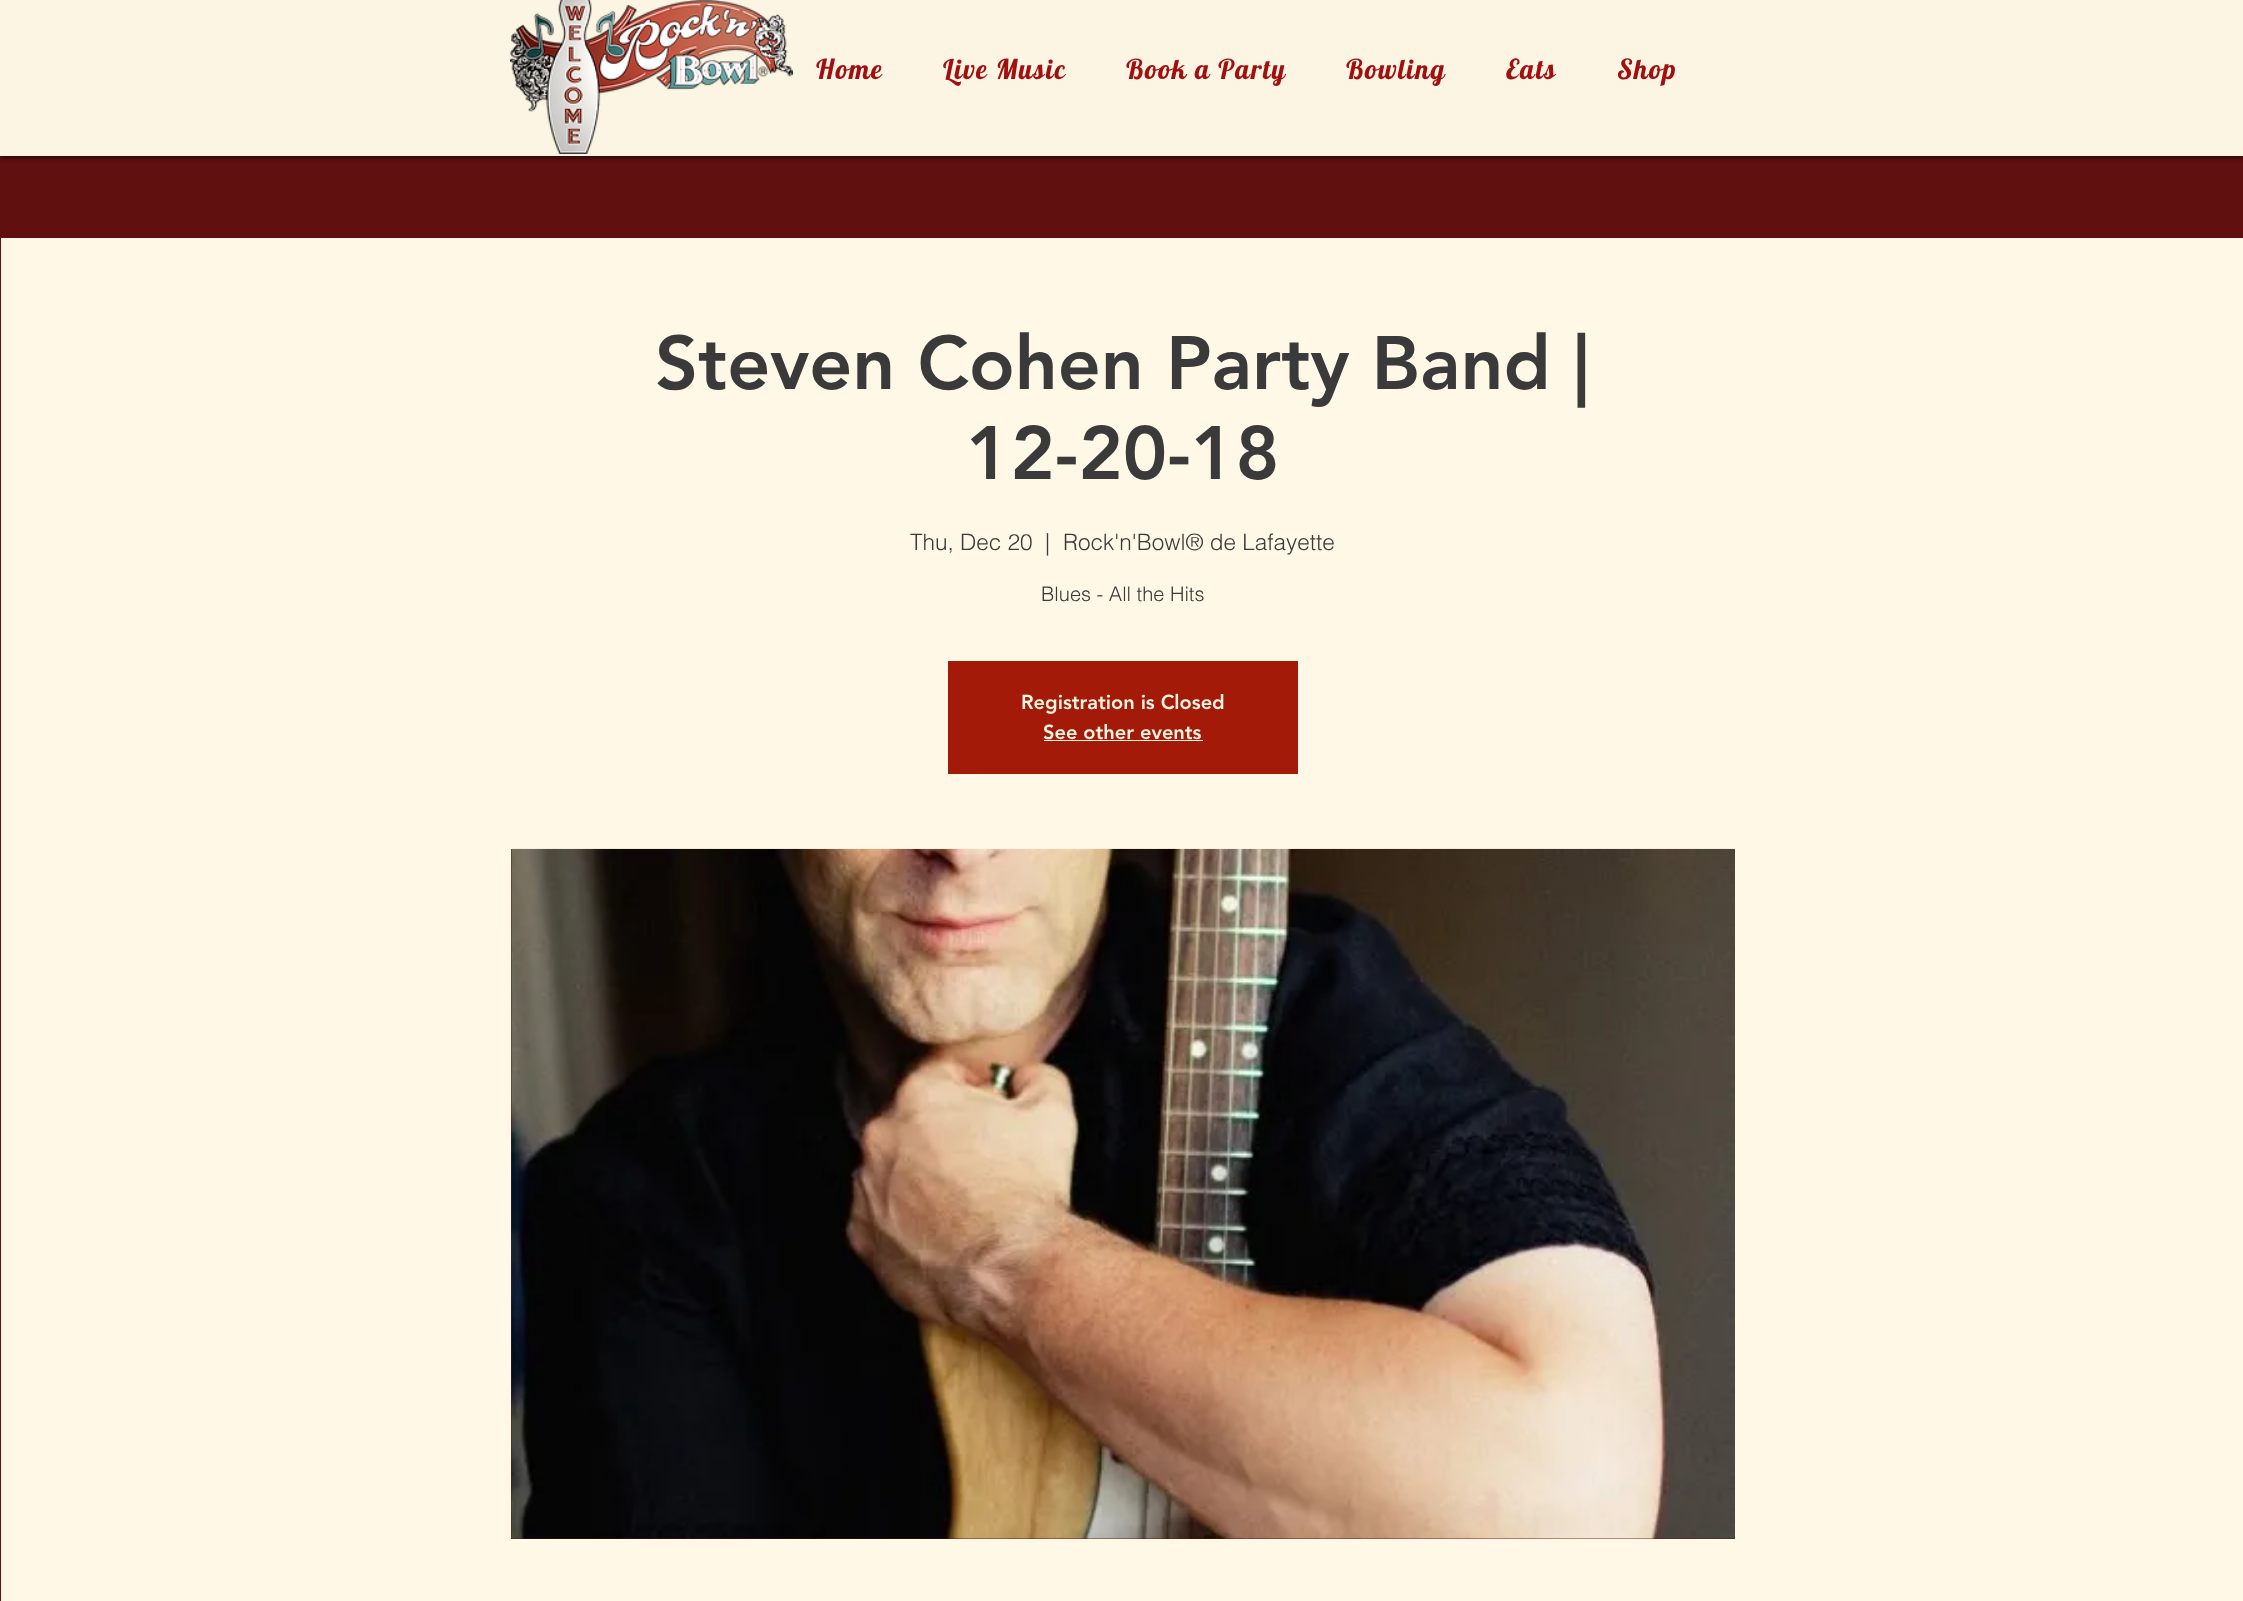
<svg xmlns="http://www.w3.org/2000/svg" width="2243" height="1601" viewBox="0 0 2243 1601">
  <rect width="100%" height="100%" fill="#611010"/>
  <path d="M0 1h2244v157H0z" fill="#00000099" filter="blur(2.5px)"/>
  <path d="M0 0h2243v156H0z" fill="#fcf5e3"/>
  <image x="510" y="0" width="283" height="154" href="img/1.png"/>
  <path d="M1 238h2242v1363H1z" fill="#fff8e6"/>
  <path d="M948 661h350v113H948z" fill="#a31a08"/>
  <path d="M1044 740h159v1H1044z" fill="#f7f5e1"/>
  <path d="M511 849h1224v690H511z" fill="#611010"/>
  <image x="511" y="848" width="1224" height="691" href="img/2.png"/>
  <g font-family="Lobster" font-size="27.5" letter-spacing="1.4" fill="#a20f0f">
    <text x="816" y="79">Home</text>
    <text x="943" y="79">Live Music</text>
    <text x="1126" y="79">Book a Party</text>
    <text x="1346" y="79">Bowling</text>
    <text x="1506" y="79">Eats</text>
    <text x="1617" y="79">Shop</text>
  </g>
  <g font-family="'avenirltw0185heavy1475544'" font-size="75" font-weight="900" fill="#3b3a3a">
    <text x="655" y="389">Steven Cohen Party Band |</text>
    <text x="966" y="479">12-20-18</text>
  </g>
  <g font-family="helvetica" font-size="22.5" font-weight="300" fill="#3b3a3a">
    <text x="910" y="550">Thu, Dec 20</text>
    <text x="1045" y="550">|</text>
    <text x="1063" y="550">Rock'n'Bowl® de Lafayette</text>
  </g>
  <text x="1041" y="601" font-family="helvetica" font-size="20" font-weight="300" fill="#3b3a3a">Blues - All the Hits</text>
  <g font-family="'avenirltw0185heavy1475544'" font-size="20" font-weight="900" fill="#f7f5e1">
    <text x="1021" y="709">Registration is Closed</text>
    <text x="1043" y="739">See other events</text>
  </g>
</svg>
